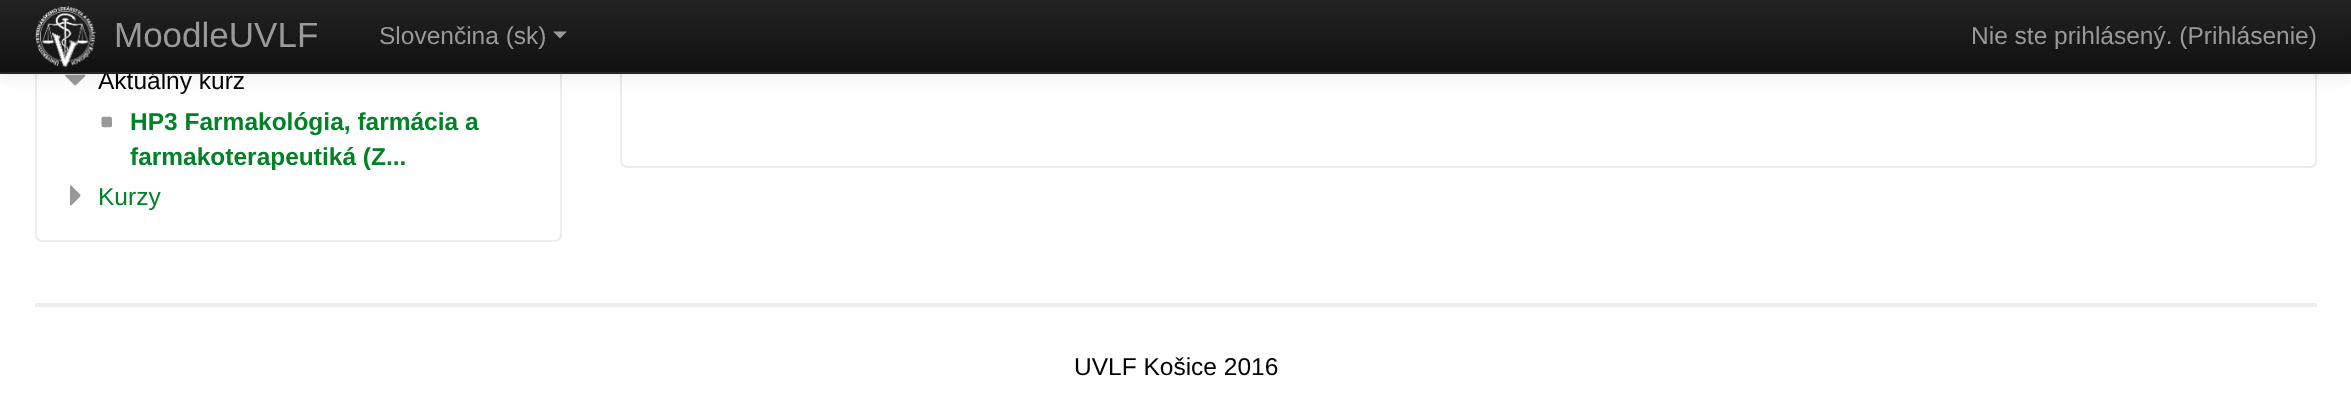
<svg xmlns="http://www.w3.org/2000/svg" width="2351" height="411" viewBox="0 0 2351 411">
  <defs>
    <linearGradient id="g1" gradientUnits="userSpaceOnUse" x1="1176" y1="0" x2="1176" y2="72"><stop offset="0" stop-color="#222"/><stop offset="1" stop-color="#111"/></linearGradient>
  </defs>
  <rect width="100%" height="100%" fill="#fff"/>
  <rect x="36" y="-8" width="525" height="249" rx="6" fill="none" stroke="#ededed" stroke-width="2"/>
  <image x="65" y="74" width="21" height="12" href="img/2.png"/>
  <rect x="621" y="-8" width="1695" height="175" rx="6" fill="none" stroke="#ededed" stroke-width="2"/>
  <path d="M0 2h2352v73H0z" fill="#0000001a" filter="blur(9px)"/>
  <image x="101" y="116" width="11" height="12" href="img/3.png"/>
  <image x="70" y="185" width="11" height="21" href="img/4.png"/>
  <path d="M35 303h2282v4H35z" fill="#ededed"/>
  <text x="98" y="89" font-family="Liberation Sans" font-size="24.5" fill="#000">Aktuálny kurz</text>
  <path d="M0 0h2351v72H0z" fill="url(#g1)"/>
  <path d="M553 31.5H567L560 38.5Z" fill="#999"/>
  <g font-family="Liberation Sans" font-size="24.5" fill="#999">
    <text x="379" y="44">Slovenčina (sk)</text>
    <text x="1971" y="44">Nie ste prihlásený. (Prihlásenie)</text>
  </g>
  <text x="114" y="47" font-family="Liberation Sans" font-size="35" fill="#999">MoodleUVLF</text>
  <image x="35" y="6" width="61" height="61" href="img/1.png"/>
  <path d="M0 72h2351v2H0z" fill="#252525"/>
  <g font-family="Liberation Sans" font-size="24.5" font-weight="bold" fill="#028227">
    <text x="130" y="130">HP3 Farmakológia, farmácia a</text>
    <text x="130" y="165">farmakoterapeutiká (Z...</text>
  </g>
  <text x="98" y="205" font-family="Liberation Sans" font-size="24.5" fill="#028227">Kurzy</text>
  <text x="1074" y="375" font-family="Liberation Sans" font-size="24.5" fill="#000">UVLF Košice 2016</text>
</svg>
